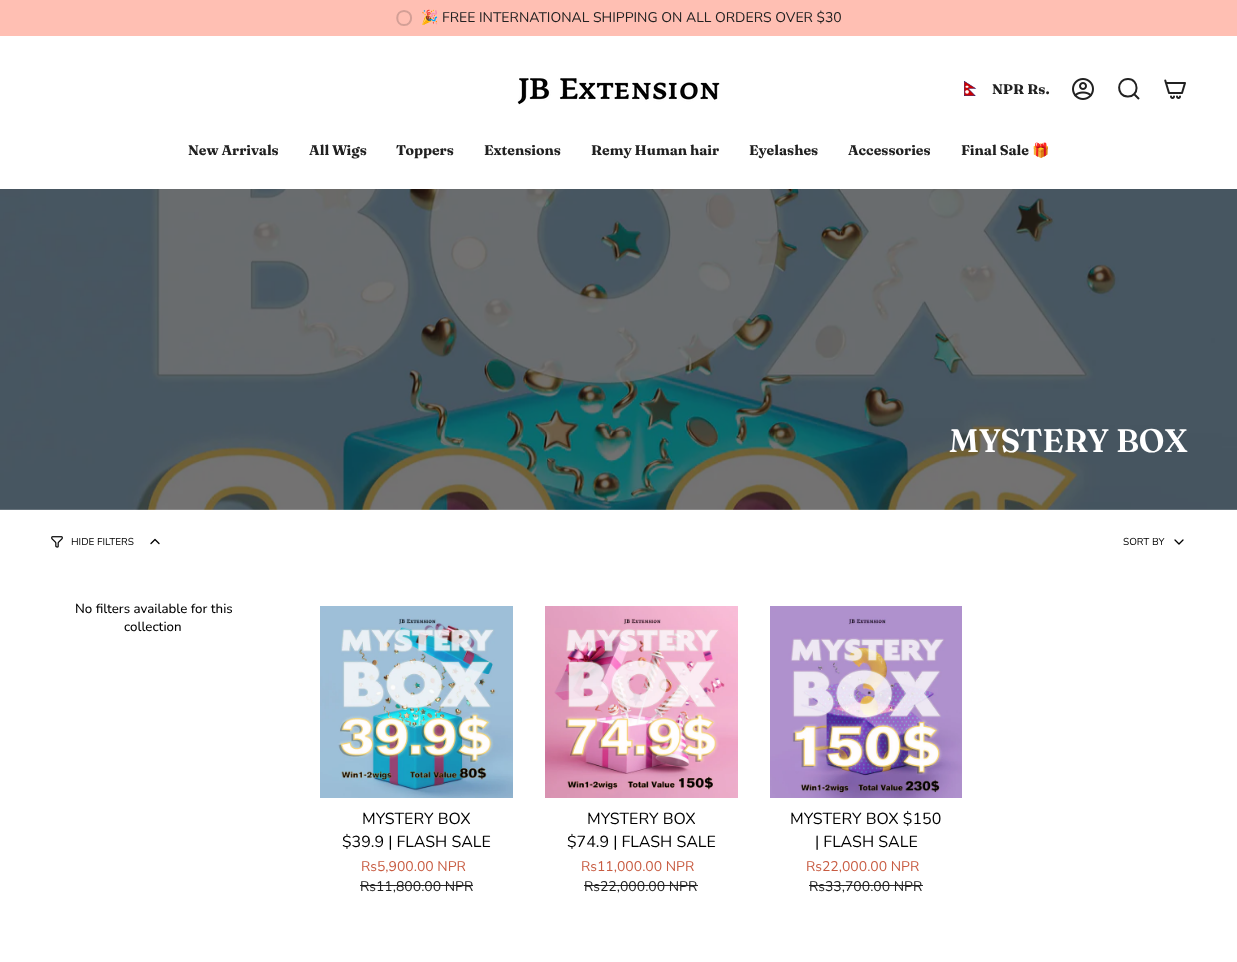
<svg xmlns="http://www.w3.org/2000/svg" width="1237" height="962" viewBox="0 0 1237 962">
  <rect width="100%" height="100%" fill="#fff"/>
  <path d="M0 0h1237v36H0z" fill="#ffbfb3"/>
  <path d="M404 11C395 11 395 25 404 25C413.5 25 413.5 11 404 11Z" fill="none" stroke="#d39f96" stroke-width="2"/>
  <image x="517" y="78" width="203" height="27" href="img/1.png"/>
  <image x="964" y="81" width="13" height="15" href="img/2.png"/>
  <image x="1072" y="78" width="22" height="22" href="img/3.png"/>
  <path d="M1128 79C1139.5 79 1139.5 97 1127.5 96.5C1116 96 1116.5 79 1128 79ZM1134 94L1139 99" fill="none" stroke="#212121" stroke-width="2"/>
  <image x="1164" y="79" width="22" height="20" href="img/4.png"/>
  <image x="0" y="189" width="1237" height="321" href="img/5.png"/>
  <image x="51" y="536" width="12" height="12" href="img/6.png"/>
  <path d="M151 543.5L155 539.5L159 543.5" fill="none" stroke="#000" stroke-width="1.3" stroke-linecap="round" stroke-linejoin="round"/>
  <path d="M1175 540L1179 544L1183 540" fill="none" stroke="#000" stroke-width="1.3" stroke-linecap="round" stroke-linejoin="round"/>
  <image x="320" y="606" width="193" height="192" href="img/7.png"/>
  <path d="M360 885h113v1H360z" fill="#212121"/>
  <image x="545" y="606" width="193" height="192" href="img/8.png"/>
  <path d="M584 885h114v1H584z" fill="#212121"/>
  <image x="770" y="606" width="192" height="192" href="img/9.png"/>
  <path d="M809 885h114v1H809z" fill="#212121"/>
  <text x="421" y="22" font-family="Noto Color Emoji" font-size="14" fill="#212121">🎉</text>
  <text x="442" y="22" font-family="Nunito" font-size="14" fill="#212121">FREE INTERNATIONAL SHIPPING ON ALL ORDERS OVER $30</text>
  <text x="992" y="94" font-family="Fraunces" font-size="14" font-weight="bold" fill="#212121">NPR Rs.</text>
  <g font-family="'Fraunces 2'" font-size="14" font-weight="bold" fill="#212121">
    <text x="188" y="155">New Arrivals</text>
    <text x="309" y="155">All Wigs</text>
    <text x="396" y="155">Toppers</text>
    <text x="484" y="155">Extensions</text>
    <text x="591" y="155">Remy Human hair</text>
    <text x="749" y="155">Eyelashes</text>
    <text x="848" y="155">Accessories</text>
  </g>
  <text x="961" y="155" font-family="Fraunces" font-size="14" font-weight="bold" fill="#212121">Final Sale</text>
  <text x="1032" y="155" font-family="Noto Color Emoji" font-size="14" font-weight="bold" fill="#212121">🎁</text>
  <text x="949" y="452" font-family="Fraunces" font-size="32.5" font-weight="600" fill="#fff">MYSTERY BOX</text>
  <g font-family="Nunito" font-size="10" fill="#000">
    <text x="71" y="545">HIDE FILTERS</text>
    <text x="1123" y="545">SORT BY</text>
  </g>
  <g font-family="Nunito" font-size="13.25" font-weight="500" fill="#000">
    <text x="75" y="613">No filters available for this</text>
    <text x="124" y="631">collection</text>
  </g>
  <g font-family="Nunito" font-size="16" fill="#000">
    <text x="362" y="824">MYSTERY BOX</text>
    <text x="342" y="847">$39.9 | FLASH SALE</text>
  </g>
  <text x="361" y="871" font-family="Nunito" font-size="14" fill="#c85c42">Rs5,900.00 NPR</text>
  <text x="360" y="891" font-family="Nunito" font-size="14" fill="#212121">Rs11,800.00 NPR</text>
  <g font-family="Nunito" font-size="16" fill="#000">
    <text x="587" y="824">MYSTERY BOX</text>
    <text x="567" y="847">$74.9 | FLASH SALE</text>
  </g>
  <text x="581" y="871" font-family="Nunito" font-size="14" fill="#c85c42">Rs11,000.00 NPR</text>
  <text x="584" y="891" font-family="Nunito" font-size="14" fill="#212121">Rs22,000.00 NPR</text>
  <g font-family="Nunito" font-size="16" fill="#000">
    <text x="790" y="824">MYSTERY BOX $150</text>
    <text x="815" y="847">| FLASH SALE</text>
  </g>
  <text x="806" y="871" font-family="Nunito" font-size="14" fill="#c85c42">Rs22,000.00 NPR</text>
  <text x="809" y="891" font-family="Nunito" font-size="14" fill="#212121">Rs33,700.00 NPR</text>
</svg>
